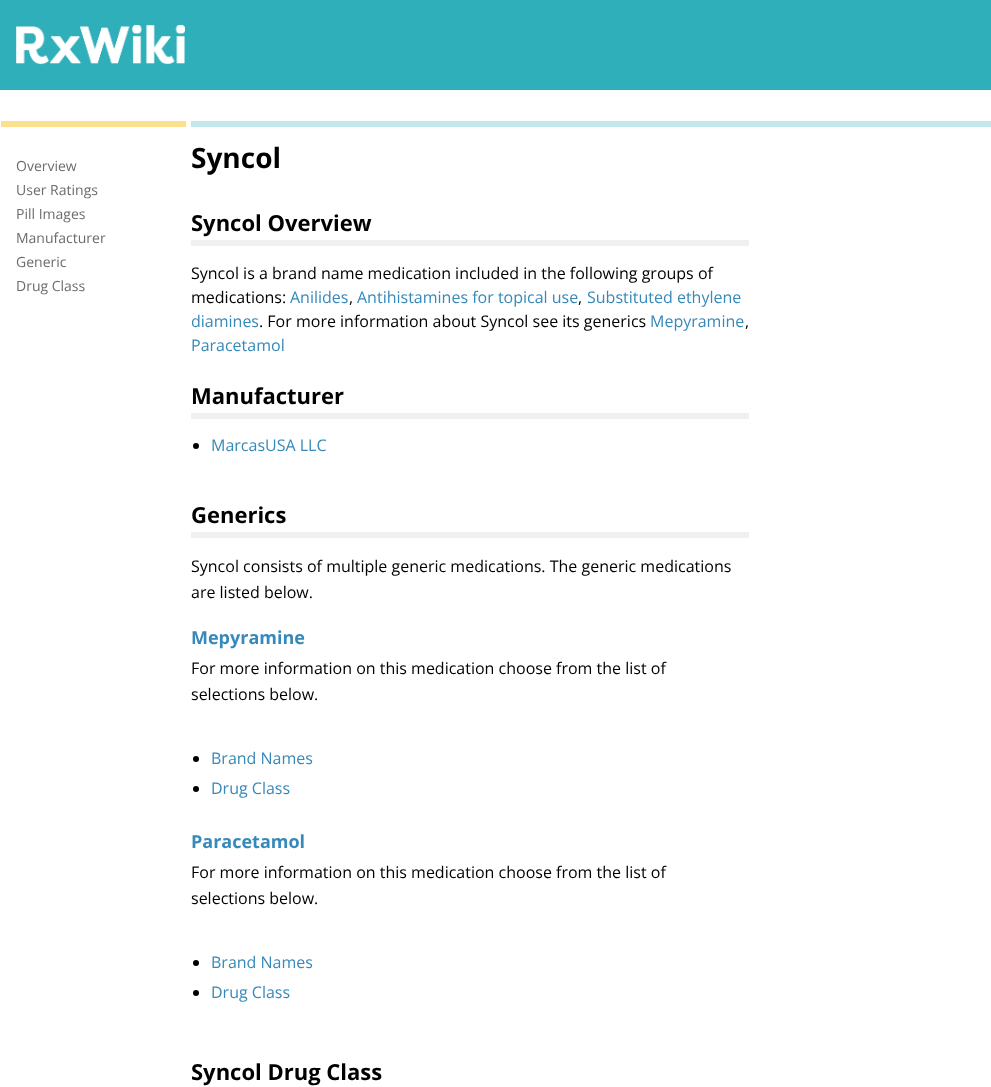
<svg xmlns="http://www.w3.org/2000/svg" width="991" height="1087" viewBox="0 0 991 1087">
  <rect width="100%" height="100%" fill="#fff"/>
  <path d="M0 0h991v90H0z" fill="#2fafb9"/>
  <image x="16" y="25" width="169" height="40" href="img/1.png"/>
  <path d="M1 121h185v6H1z" fill="#fbe18d"/>
  <path d="M191 121h800v6H191z" fill="#c2e8eb"/>
  <path d="M191 240h558v6H191z" fill="#f0f0f0"/>
  <path d="M191 413h558v6H191z" fill="#f0f0f0"/>
  <circle cx="196" cy="446" r="3" fill="#000"/>
  <path d="M191 532h558v6H191z" fill="#f0f0f0"/>
  <circle cx="196" cy="759" r="3" fill="#000"/>
  <circle cx="196" cy="789" r="3" fill="#000"/>
  <circle cx="196" cy="963" r="3" fill="#000"/>
  <circle cx="196" cy="993" r="3" fill="#000"/>
  <g font-family="Open Sans" font-size="14" fill="#6c6c6c">
    <text x="16" y="171">Overview</text>
    <text x="16" y="195">User Ratings</text>
    <text x="16" y="219">Pill Images</text>
    <text x="16" y="243">Manufacturer</text>
    <text x="16" y="267">Generic</text>
    <text x="16" y="291">Drug Class</text>
  </g>
  <text x="191" y="168" font-family="Open Sans" font-size="28" font-weight="bold" fill="#000">Syncol</text>
  <text x="191" y="231" font-family="Open Sans" font-size="22" font-weight="bold" fill="#000">Syncol Overview</text>
  <g font-family="Open Sans" font-size="16" fill="#000">
    <text x="191" y="279">Syncol is a brand name medication included in the following groups of</text>
    <text x="191" y="303">medications:</text>
  </g>
  <text x="290" y="303" font-family="Open Sans" font-size="16" fill="#3789b9">Anilides</text>
  <text x="349" y="303" font-family="Open Sans" font-size="16" fill="#000">,</text>
  <text x="357" y="303" font-family="Open Sans" font-size="16" fill="#3789b9">Antihistamines for topical use</text>
  <text x="578" y="303" font-family="Open Sans" font-size="16" fill="#000">,</text>
  <g font-family="Open Sans" font-size="16" fill="#3789b9">
    <text x="587" y="303">Substituted ethylene</text>
    <text x="191" y="327">diamines</text>
  </g>
  <text x="259" y="327" font-family="Open Sans" font-size="16" fill="#000">. For more information about Syncol see its generics</text>
  <text x="650" y="327" font-family="Open Sans" font-size="16" fill="#3789b9">Mepyramine</text>
  <text x="745" y="327" font-family="Open Sans" font-size="16" fill="#000">,</text>
  <text x="191" y="351" font-family="Open Sans" font-size="16" fill="#3789b9">Paracetamol</text>
  <text x="191" y="404" font-family="Open Sans" font-size="22" font-weight="bold" fill="#000">Manufacturer</text>
  <text x="211" y="451" font-family="Open Sans" font-size="16" fill="#3789b9">MarcasUSA LLC</text>
  <text x="191" y="523" font-family="Open Sans" font-size="22" font-weight="bold" fill="#000">Generics</text>
  <g font-family="Open Sans" font-size="16" fill="#000">
    <text x="191" y="572">Syncol consists of multiple generic medications. The generic medications</text>
    <text x="191" y="598">are listed below.</text>
  </g>
  <text x="191" y="644" font-family="Open Sans" font-size="18" font-weight="bold" fill="#3789b9">Mepyramine</text>
  <g font-family="Open Sans" font-size="16" fill="#000">
    <text x="191" y="674">For more information on this medication choose from the list of</text>
    <text x="191" y="700">selections below.</text>
  </g>
  <g font-family="Open Sans" font-size="16" fill="#3789b9">
    <text x="211" y="764">Brand Names</text>
    <text x="211" y="794">Drug Class</text>
  </g>
  <text x="191" y="848" font-family="Open Sans" font-size="18" font-weight="bold" fill="#3789b9">Paracetamol</text>
  <g font-family="Open Sans" font-size="16" fill="#000">
    <text x="191" y="878">For more information on this medication choose from the list of</text>
    <text x="191" y="904">selections below.</text>
  </g>
  <g font-family="Open Sans" font-size="16" fill="#3789b9">
    <text x="211" y="968">Brand Names</text>
    <text x="211" y="998">Drug Class</text>
  </g>
  <text x="191" y="1080" font-family="Open Sans" font-size="22" font-weight="bold" fill="#000">Syncol Drug Class</text>
</svg>
